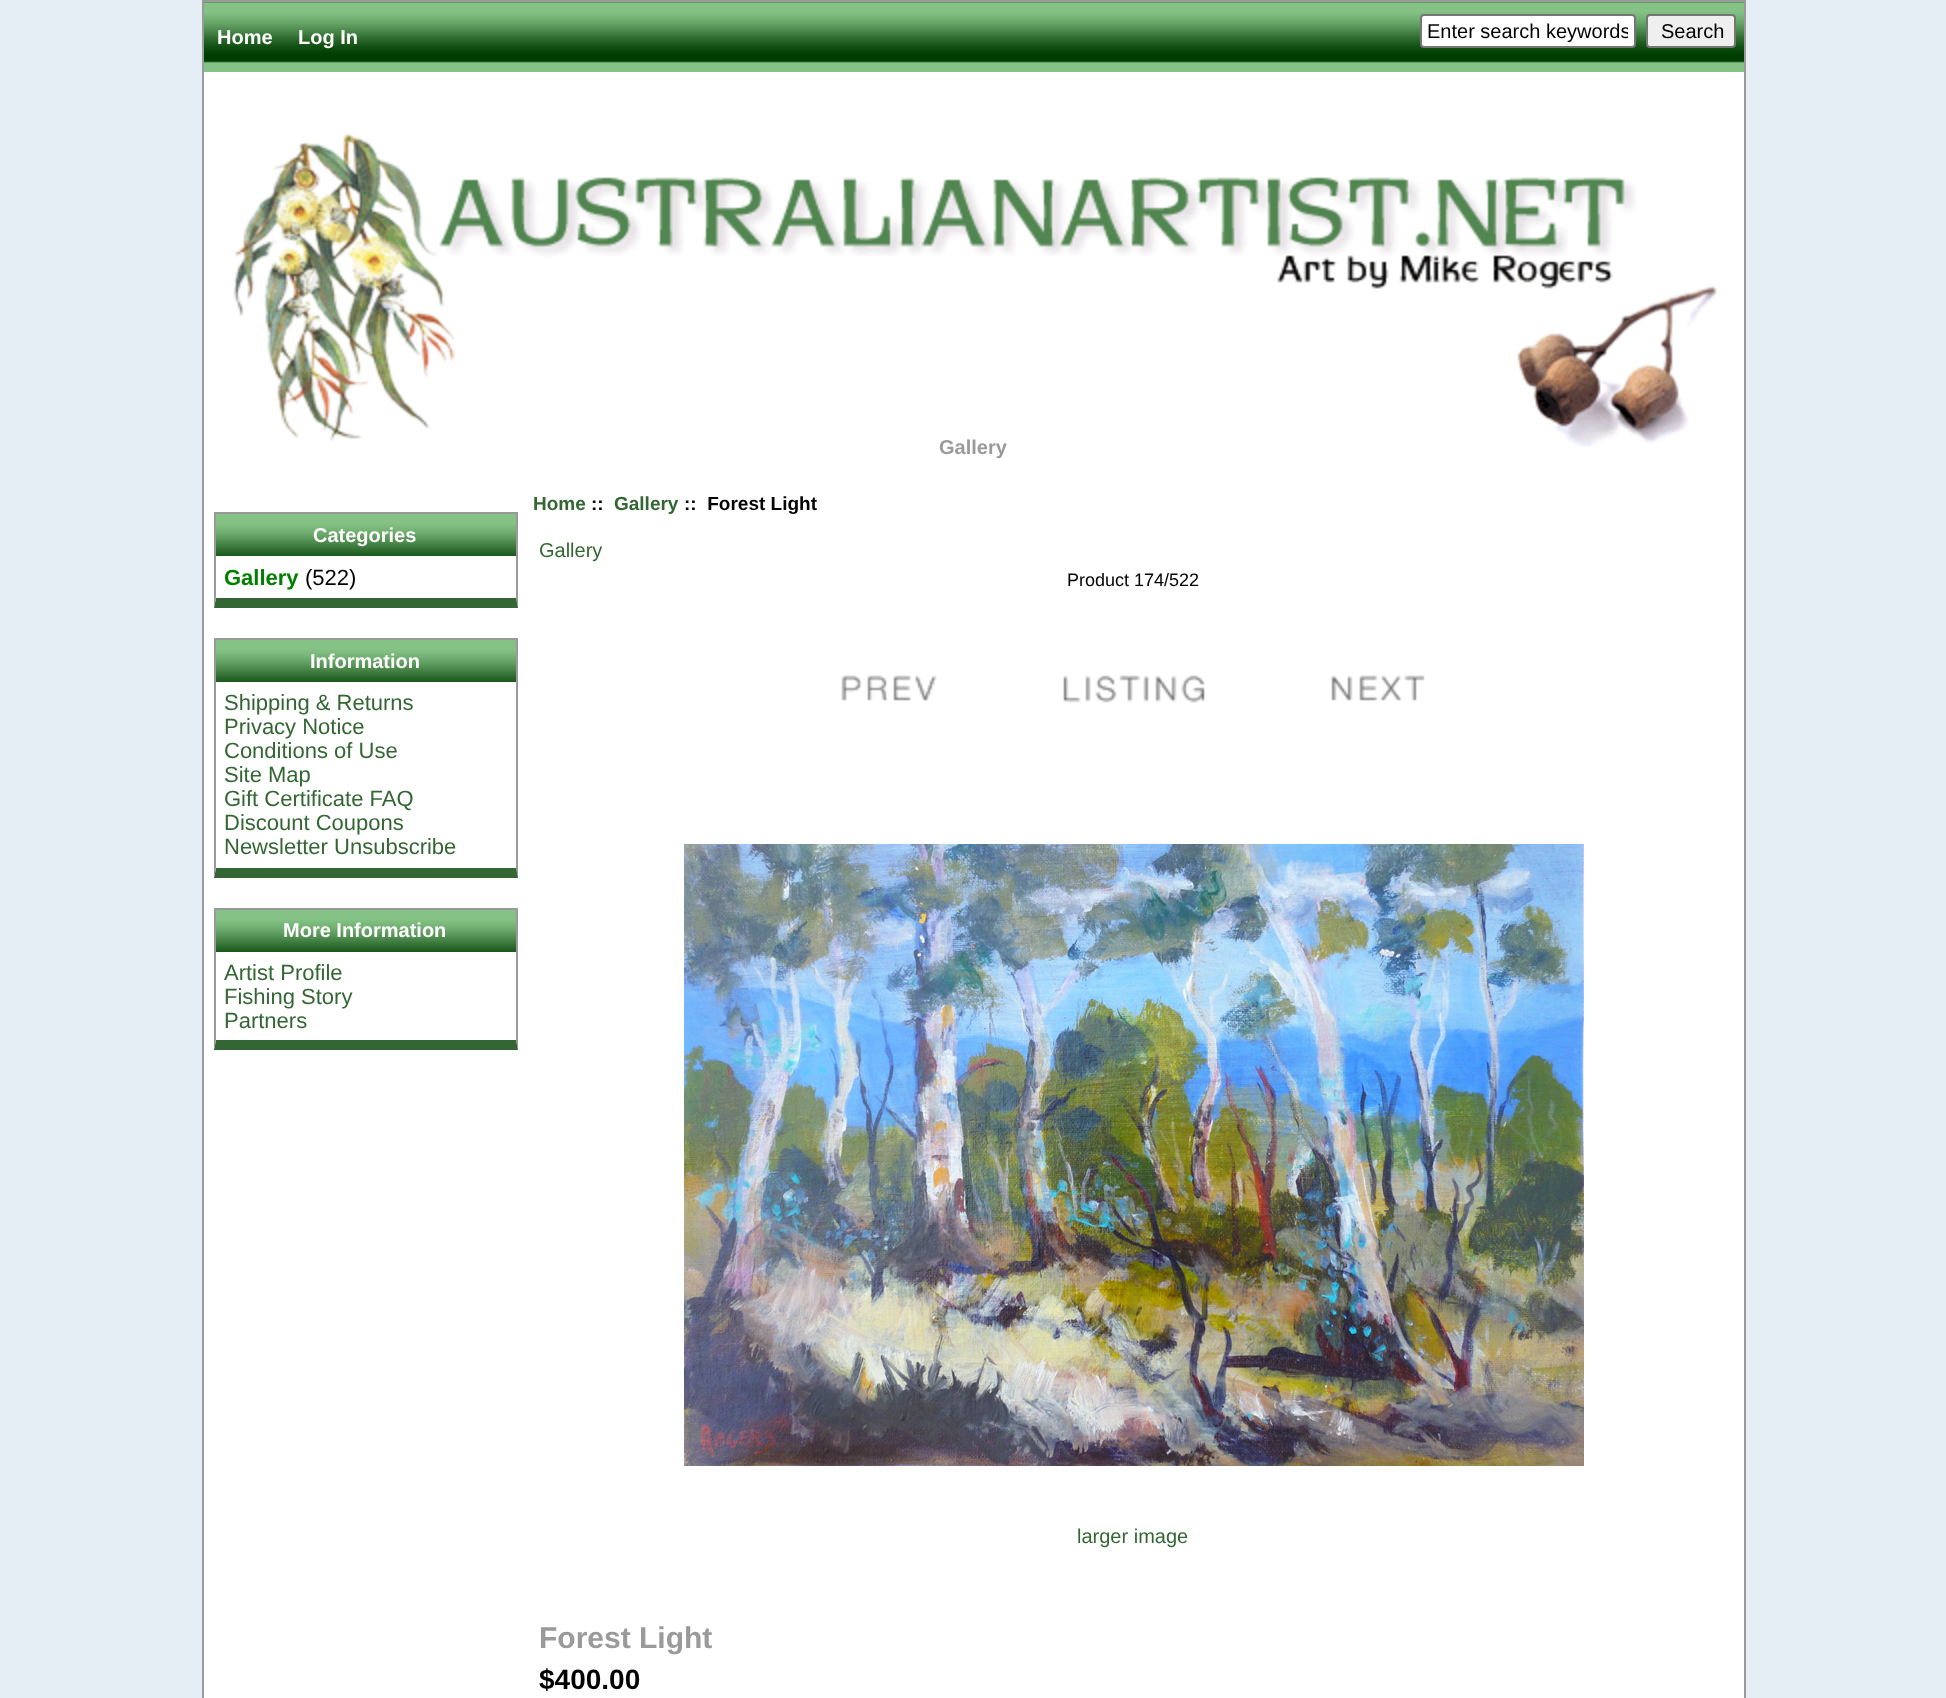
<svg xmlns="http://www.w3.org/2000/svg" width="1946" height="1698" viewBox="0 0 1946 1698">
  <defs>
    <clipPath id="clip1"><path d="M1428 20h200v22H1428z"/></clipPath>
  </defs>
  <rect width="100%" height="100%" fill="#e5edf5"/>
  <path d="M204 72h1540v1626H204z" fill="#fff"/>
  <path d="M203 1h1542v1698H203z" fill="none" stroke="#9a9a9a" stroke-width="2"/>
  <image x="204" y="2" width="1540" height="70" href="img/1.png"/>
  <rect x="1421" y="15" width="214" height="32" rx="3" fill="#fff" stroke="#767676" stroke-width="2"/>
  <rect x="1647" y="15" width="88" height="32" rx="3" fill="#efefef" stroke="#767676" stroke-width="2"/>
  <image x="233" y="133" width="1485" height="315" href="img/2.png"/>
  <path d="M214 512h304v2H214z" fill="#9a9a9a"/>
  <path d="M518 512V608L516 598V514Z" fill="#9a9a9a"/>
  <path d="M518 608H214L216 598H516Z" fill="#363"/>
  <path d="M214 608V512L216 514V598Z" fill="#9a9a9a"/>
  <image x="216" y="514" width="300" height="42" href="img/3.png"/>
  <path d="M214 638h304v2H214z" fill="#9a9a9a"/>
  <path d="M518 638V878L516 868V640Z" fill="#9a9a9a"/>
  <path d="M518 878H214L216 868H516Z" fill="#363"/>
  <path d="M214 878V638L216 640V868Z" fill="#9a9a9a"/>
  <image x="216" y="640" width="300" height="42" href="img/3.png"/>
  <path d="M214 908h304v2H214z" fill="#9a9a9a"/>
  <path d="M518 908V1050L516 1040V910Z" fill="#9a9a9a"/>
  <path d="M518 1050H214L216 1040H516Z" fill="#363"/>
  <path d="M214 1050V908L216 910V1040Z" fill="#9a9a9a"/>
  <image x="216" y="910" width="300" height="42" href="img/3.png"/>
  <image x="841" y="675" width="96" height="26" href="img/4.png"/>
  <image x="1063" y="675" width="142" height="28" href="img/5.png"/>
  <image x="1331" y="675" width="94" height="26" href="img/6.png"/>
  <image x="684" y="844" width="900" height="622" href="img/7.png"/>
  <g font-family="Liberation Sans" font-size="20" font-weight="bold" fill="#fff">
    <text x="217" y="44">Home</text>
    <text x="298" y="44">Log In</text>
  </g>
  <g clip-path="url(#clip1)">
    <text x="1427" y="38" font-family="Liberation Sans" font-size="20" fill="#000">Enter search keywords</text>
  </g>
  <text x="1661" y="38" font-family="Liberation Sans" font-size="20" fill="#000">Search</text>
  <text x="939" y="454" font-family="Liberation Sans" font-size="20" font-weight="bold" fill="#9a9a9a">Gallery</text>
  <text x="313" y="542" font-family="Liberation Sans" font-size="20" font-weight="bold" fill="#fff">Categories</text>
  <text x="224" y="585" font-family="Liberation Sans" font-size="22" font-weight="bold" fill="#008000">Gallery</text>
  <text x="305" y="585" font-family="Liberation Sans" font-size="22" fill="#000">(522)</text>
  <text x="310" y="668" font-family="Liberation Sans" font-size="20" font-weight="bold" fill="#fff">Information</text>
  <g font-family="Liberation Sans" font-size="22" fill="#363">
    <text x="224" y="710">Shipping &amp; Returns</text>
    <text x="224" y="734">Privacy Notice</text>
    <text x="224" y="758">Conditions of Use</text>
    <text x="224" y="782">Site Map</text>
    <text x="224" y="806">Gift Certificate FAQ</text>
    <text x="224" y="830">Discount Coupons</text>
    <text x="224" y="854">Newsletter Unsubscribe</text>
  </g>
  <text x="283" y="937" font-family="Liberation Sans" font-size="20" font-weight="bold" fill="#fff">More Information</text>
  <g font-family="Liberation Sans" font-size="22" fill="#363">
    <text x="224" y="980">Artist Profile</text>
    <text x="224" y="1004">Fishing Story</text>
    <text x="224" y="1028">Partners</text>
  </g>
  <text x="533" y="510" font-family="Liberation Sans" font-size="19" font-weight="bold" fill="#363">Home</text>
  <text x="591" y="510" font-family="Liberation Sans" font-size="19" font-weight="bold" fill="#000">::</text>
  <text x="614" y="510" font-family="Liberation Sans" font-size="19" font-weight="bold" fill="#363">Gallery</text>
  <text x="684" y="510" font-family="Liberation Sans" font-size="19" font-weight="bold" fill="#000" xml:space="preserve">::  Forest Light</text>
  <text x="539" y="557" font-family="Liberation Sans" font-size="20" fill="#363">Gallery</text>
  <text x="1067" y="586" font-family="Liberation Sans" font-size="18" fill="#000">Product 174/522</text>
  <text x="1077" y="1543" font-family="Liberation Sans" font-size="20" fill="#363">larger image</text>
  <text x="539" y="1648" font-family="Liberation Sans" font-size="30" font-weight="bold" fill="#9a9a9a">Forest Light</text>
  <text x="539" y="1689" font-family="Liberation Sans" font-size="28" font-weight="bold" fill="#000">$400.00</text>
</svg>
